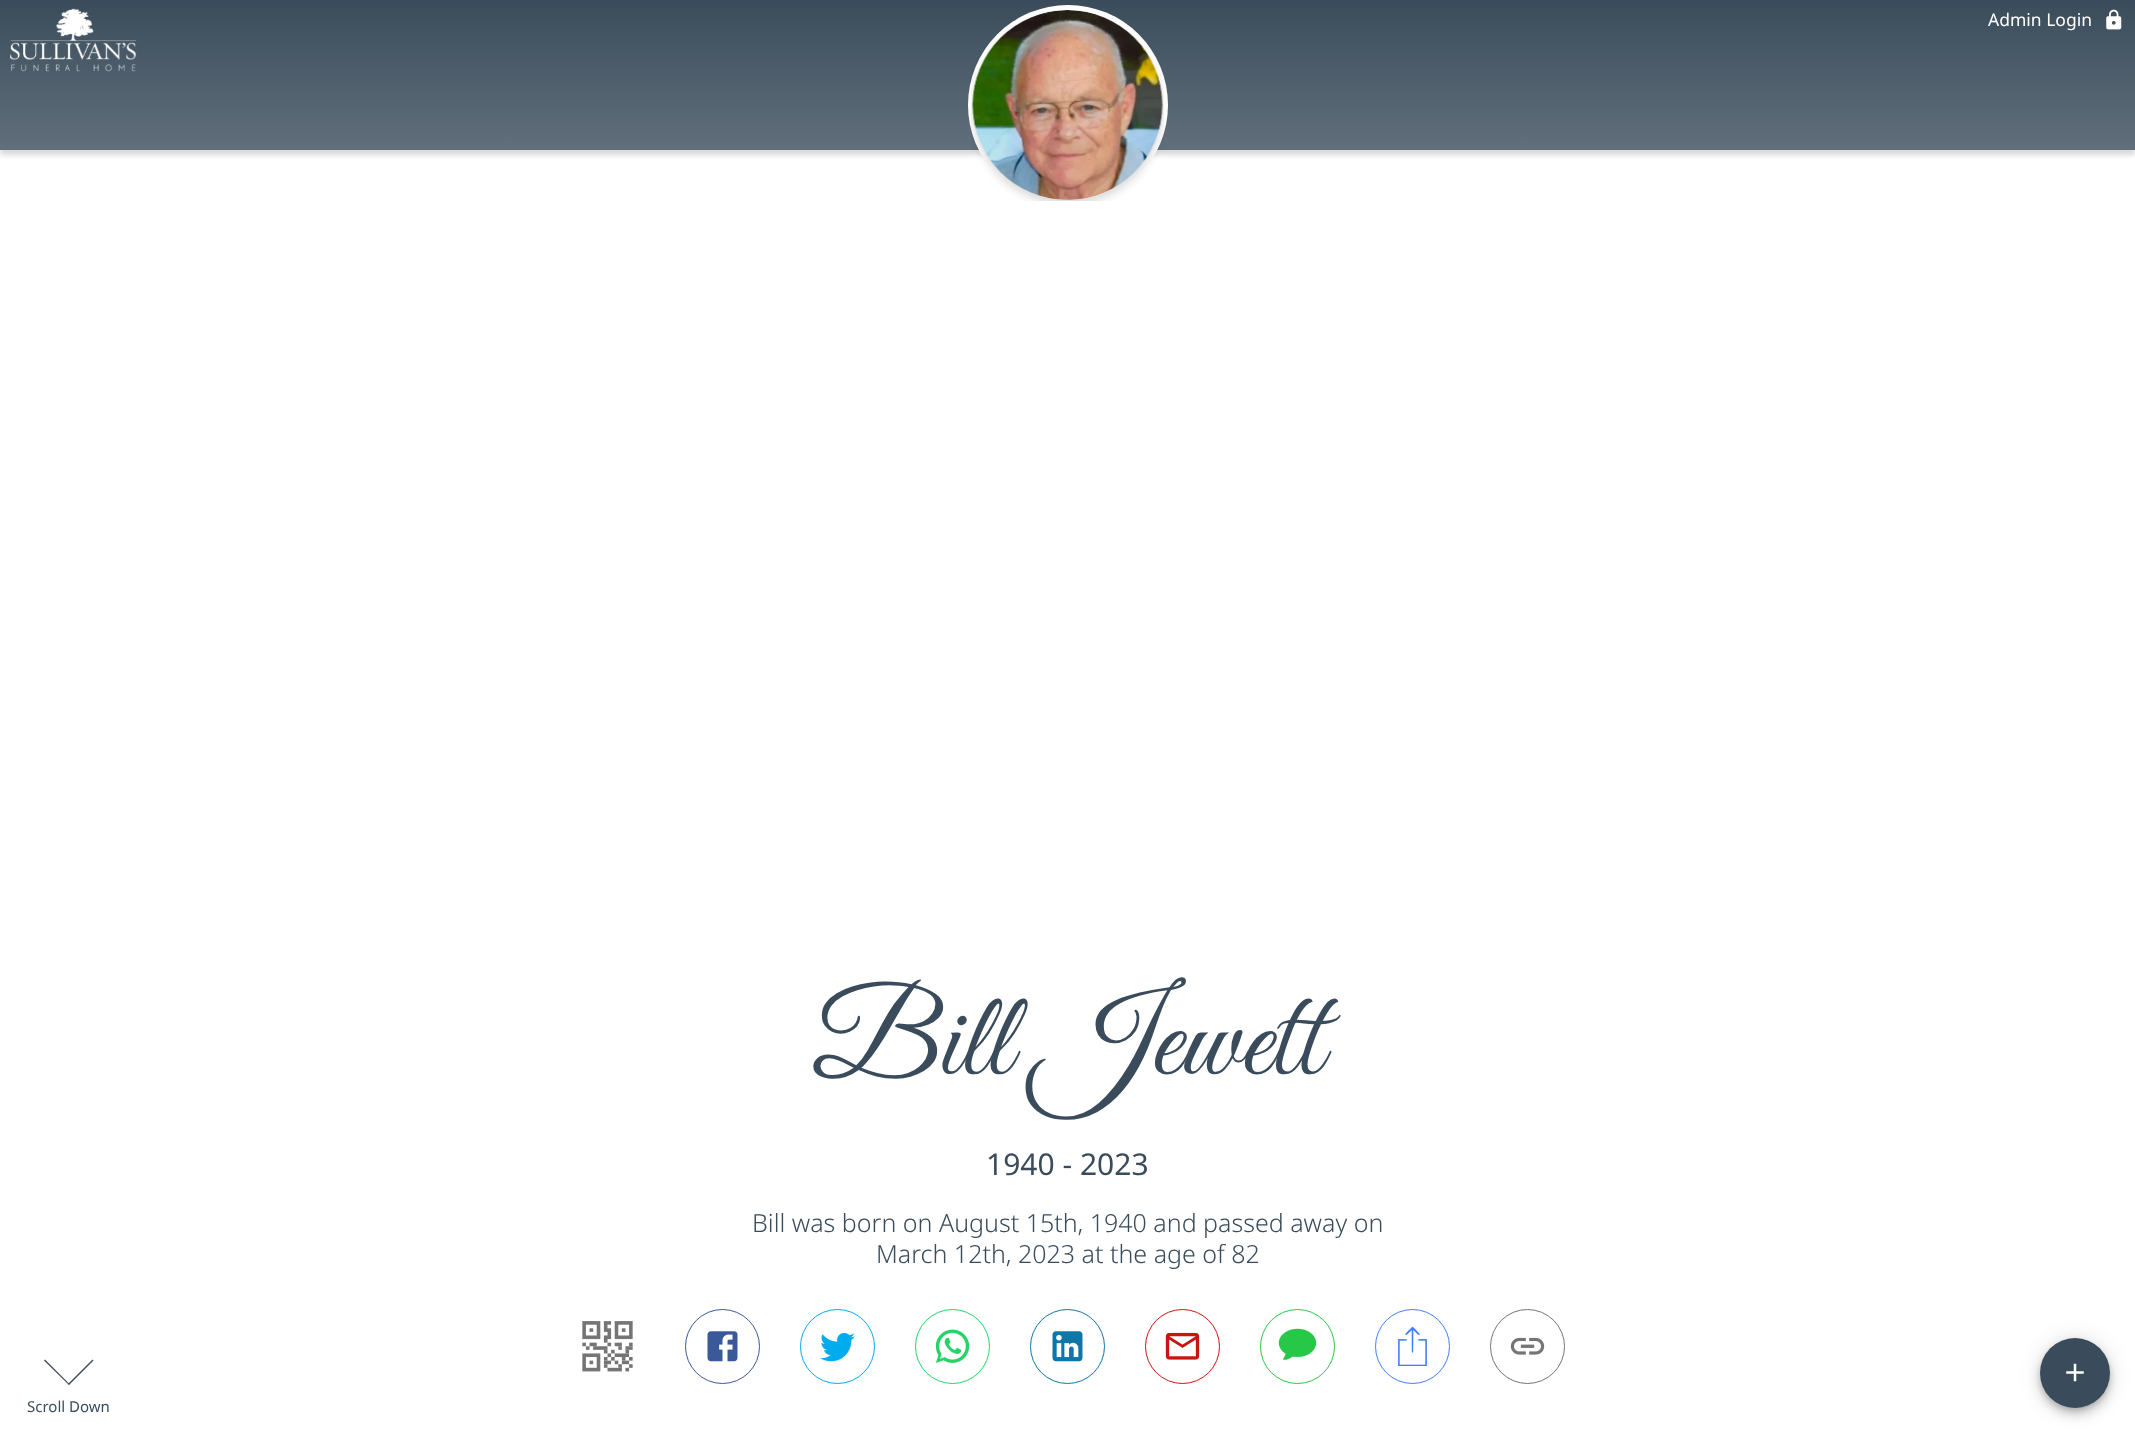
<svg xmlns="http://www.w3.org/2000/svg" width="2135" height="1432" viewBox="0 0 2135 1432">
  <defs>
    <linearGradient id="g1" gradientUnits="userSpaceOnUse" x1="1068" y1="0" x2="1068" y2="150"><stop offset="0" stop-color="#3a4c5b"/><stop offset="1" stop-color="#616f7b"/></linearGradient>
  </defs>
  <rect width="100%" height="100%" fill="#fff"/>
  <path d="M0 5h2135v150H0z" fill="#00000026" filter="blur(2.5px)"/>
  <path d="M0 0h2135v150H0z" fill="url(#g1)"/>
  <circle cx="1068" cy="105" r="100" fill="#fff"/>
  <image x="971" y="10" width="193" height="191" href="img/1.png"/>
  <image x="10" y="8" width="127" height="64" href="img/2.png"/>
  <image x="2106" y="9" width="16" height="21" href="img/3.png"/>
  <image x="582" y="1321" width="51" height="51" href="img/4.png"/>
  <circle cx="722.5" cy="1346.5" r="37" fill="none" stroke="#3b5998"/>
  <image x="707" y="1331" width="31" height="31" href="img/5.png"/>
  <circle cx="837.5" cy="1346.5" r="37" fill="none" stroke="#00acee"/>
  <image x="820" y="1332" width="35" height="30" href="img/6.png"/>
  <circle cx="952.5" cy="1346.5" r="37" fill="none" stroke="#25d366"/>
  <image x="935" y="1329" width="35" height="34" href="img/7.png"/>
  <circle cx="1067.5" cy="1346.5" r="37" fill="none" stroke="#0e76a8"/>
  <image x="1052" y="1331" width="31" height="31" href="img/8.png"/>
  <circle cx="1182.5" cy="1346.5" r="37" fill="none" stroke="#c71610"/>
  <image x="1165" y="1332" width="35" height="28" href="img/9.png"/>
  <circle cx="1297.5" cy="1346.5" r="37" fill="none" stroke="#27c848"/>
  <image x="1278" y="1328" width="39" height="32" href="img/10.png"/>
  <circle cx="1412.5" cy="1346.5" r="37" fill="none" stroke="#3e80f5"/>
  <image x="1398" y="1326" width="29" height="40" href="img/11.png"/>
  <circle cx="1527.5" cy="1346.5" r="37" fill="none" stroke="#757575"/>
  <image x="1510" y="1337" width="35" height="18" href="img/12.png"/>
  <path d="M68 1384L92.5 1359.5L93.5 1360.5L69 1385Z" fill="#3a4c5b"/>
  <path d="M44 1360.5L45 1359.5L69.5 1384L69 1385Z" fill="#3a4c5b"/>
  <rect x="2040" y="1339" width="70" height="70" rx="35" fill="#0000001f" filter="blur(11px)"/>
  <rect x="2040" y="1345" width="70" height="70" rx="35" fill="#00000024" filter="blur(6px)"/>
  <rect x="2041" y="1343" width="68" height="67" rx="33.5" fill="#00000033" filter="blur(3px)"/>
  <circle cx="2075" cy="1373" r="35" fill="#3a4c5b"/>
  <image x="2066" y="1363" width="18" height="19" href="img/13.png"/>
  <text x="1988" y="26" font-family="Noto Sans" font-size="17.5" fill="#fff">Admin Login</text>
  <text x="812" y="1074" font-family="Great Vibes" font-size="120" fill="#3a4c5b">Bill Jewett</text>
  <text x="986" y="1175" font-family="Noto Sans" font-size="30" fill="#3a4c5b">1940 - 2023</text>
  <g font-family="Noto Sans" font-size="25" font-weight="300" fill="#3a4c5b">
    <text x="752" y="1232">Bill was born on August 15th, 1940 and passed away on</text>
    <text x="876" y="1263">March 12th, 2023 at the age of 82</text>
  </g>
  <text x="27" y="1412" font-family="Noto Sans" font-size="15" fill="#3a4c5b">Scroll Down</text>
</svg>
